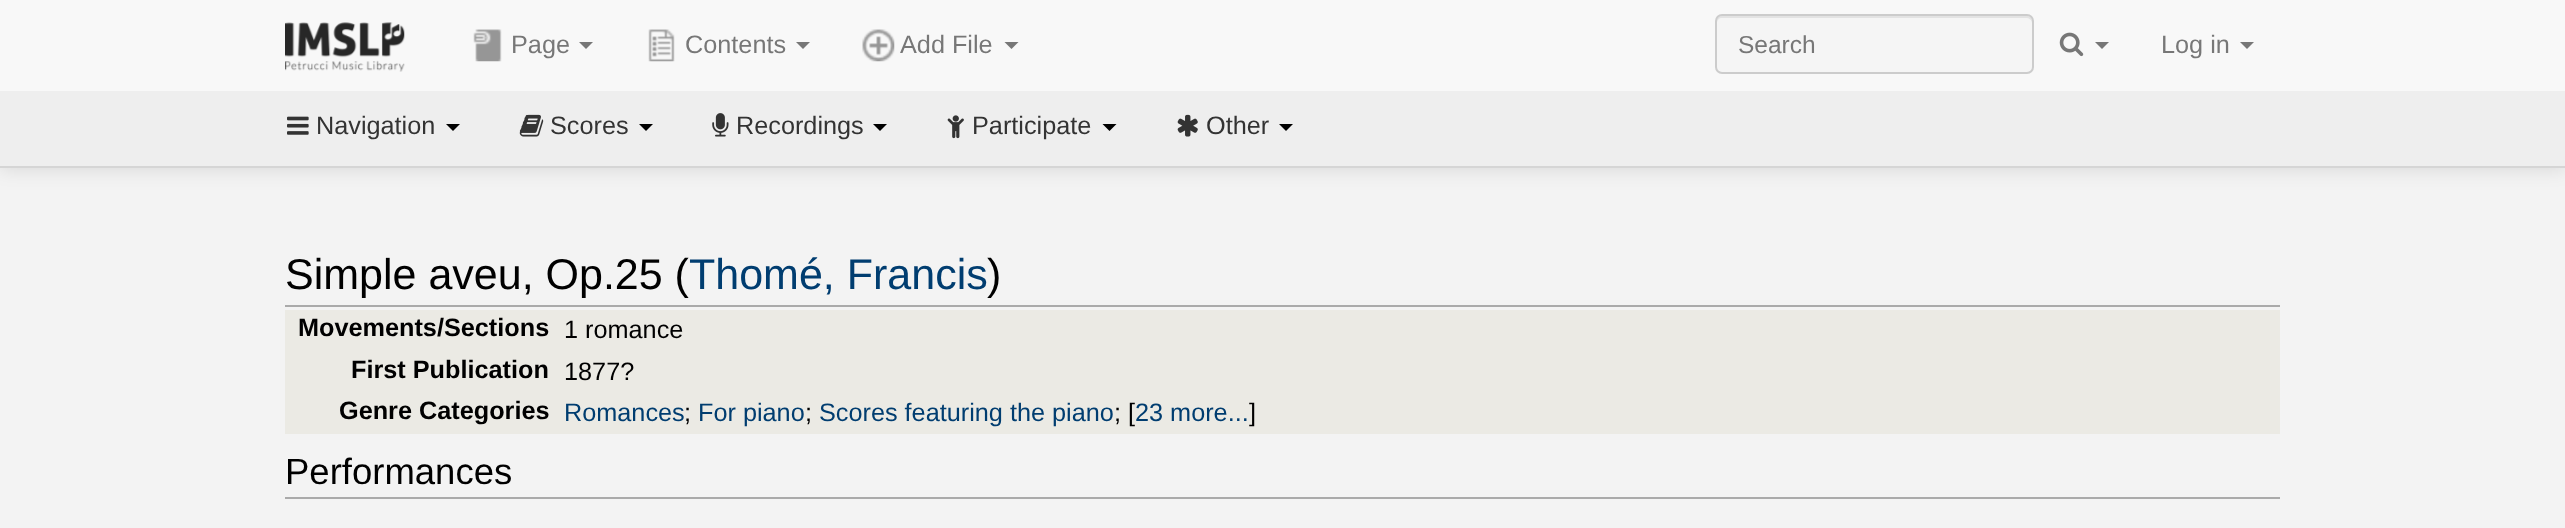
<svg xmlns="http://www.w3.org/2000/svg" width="2565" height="528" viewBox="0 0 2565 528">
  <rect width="100%" height="100%" fill="#f3f3f3"/>
  <path d="M0 93h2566v77H0z" fill="#0000001a" filter="blur(9px)"/>
  <path d="M0 0h2565v91H0z" fill="#f8f8f8"/>
  <image x="285" y="22" width="120" height="50" href="img/1.png"/>
  <image x="473" y="29" width="29" height="33" href="img/2.png"/>
  <path d="M579 42H593L586 49Z" fill="#777"/>
  <image x="648" y="29" width="27" height="33" href="img/3.png"/>
  <path d="M796 42H810L803 49Z" fill="#777"/>
  <image x="862" y="29" width="33" height="33" href="img/4.png"/>
  <path d="M1004.5 42H1018.5L1011.5 49Z" fill="#777"/>
  <rect x="1715" y="14" width="319" height="60" rx="7" fill="#f5f5f5"/>
  <path d="M1722 18H2026C2029 18 2032 20 2032 23V21C2032 18 2030 16 2027 16H1722C1719 16 1717 18 1717 21V23C1717 20 1719 18 1722 18Z" fill="#e3e3e3"/>
  <rect x="1716" y="15" width="317" height="58" rx="6" fill="none" stroke="#ccc" stroke-width="2"/>
  <image x="2059" y="32" width="25" height="25" href="img/5.png"/>
  <path d="M2095 42H2109L2102 49Z" fill="#777"/>
  <path d="M2240 42H2254L2247 49Z" fill="#777"/>
  <path d="M0 91h2565v75H0z" fill="#eee"/>
  <path d="M0 166h2565v2H0z" fill="#d5d5d5"/>
  <image x="287" y="116" width="22" height="19" href="img/6.png"/>
  <path d="M446 124H460L453 131Z" fill="#000"/>
  <image x="519" y="114" width="25" height="23" href="img/7.png"/>
  <path d="M639 124H653L646 131Z" fill="#000"/>
  <image x="712" y="113" width="17" height="24" href="img/8.png"/>
  <path d="M873 124H887L880 131Z" fill="#000"/>
  <image x="947" y="115" width="17" height="24" href="img/9.png"/>
  <path d="M1102.5 124H1116.5L1109.5 131Z" fill="#000"/>
  <image x="1177" y="114" width="21" height="23" href="img/10.png"/>
  <path d="M1279 124H1293L1286 131Z" fill="#000"/>
  <path d="M285 305h1995v2H285z" fill="#aaa"/>
  <path d="M285 310h1995v124H285z" fill="#ebeae4"/>
  <path d="M285 497h1995v2H285z" fill="#aaa"/>
  <g font-family="Liberation Sans" font-size="25.25" fill="#777">
    <text x="511" y="53">Page</text>
    <text x="685" y="53">Contents</text>
    <text x="900" y="53">Add File</text>
  </g>
  <text x="1738" y="53" font-family="Liberation Sans" font-size="24.5" fill="#777">Search</text>
  <text x="2161" y="53" font-family="Liberation Sans" font-size="25.25" fill="#777">Log in</text>
  <g font-family="Liberation Sans" font-size="25.25" fill="#333">
    <text x="316" y="134">Navigation</text>
    <text x="550" y="134">Scores</text>
    <text x="736" y="134">Recordings</text>
    <text x="972" y="134">Participate</text>
    <text x="1206" y="134">Other</text>
  </g>
  <text x="285" y="289" font-family="Liberation Sans" font-size="43" fill="#000">Simple aveu, Op.25 (</text>
  <text x="689" y="289" font-family="Liberation Sans" font-size="43" fill="#003d70">Thomé, Francis</text>
  <text x="987" y="289" font-family="Liberation Sans" font-size="43" fill="#000">)</text>
  <text x="298" y="336" font-family="Liberation Sans" font-size="25.25" font-weight="bold" fill="#000">Movements/Sections</text>
  <text x="564" y="338" font-family="Liberation Sans" font-size="25.25" fill="#000">1 romance</text>
  <text x="351" y="378" font-family="Liberation Sans" font-size="25.25" font-weight="bold" fill="#000">First Publication</text>
  <text x="564" y="380" font-family="Liberation Sans" font-size="25.25" fill="#000">1877?</text>
  <text x="339" y="419" font-family="Liberation Sans" font-size="25.25" font-weight="bold" fill="#000">Genre Categories</text>
  <text x="564" y="421" font-family="Liberation Sans" font-size="25.25" fill="#003d70">Romances</text>
  <text x="684" y="421" font-family="Liberation Sans" font-size="25.25" fill="#000">;</text>
  <text x="698" y="421" font-family="Liberation Sans" font-size="25.25" fill="#003d70">For piano</text>
  <text x="805" y="421" font-family="Liberation Sans" font-size="25.25" fill="#000">;</text>
  <text x="819" y="421" font-family="Liberation Sans" font-size="25.25" fill="#003d70">Scores featuring the piano</text>
  <text x="1114" y="421" font-family="Liberation Sans" font-size="25.25" fill="#000">; [</text>
  <text x="1135" y="421" font-family="Liberation Sans" font-size="25.25" fill="#003d70">23 more...</text>
  <text x="1249" y="421" font-family="Liberation Sans" font-size="25.25" fill="#000">]</text>
  <text x="285" y="484" font-family="Liberation Sans" font-size="36.5" fill="#000">Performances</text>
</svg>
